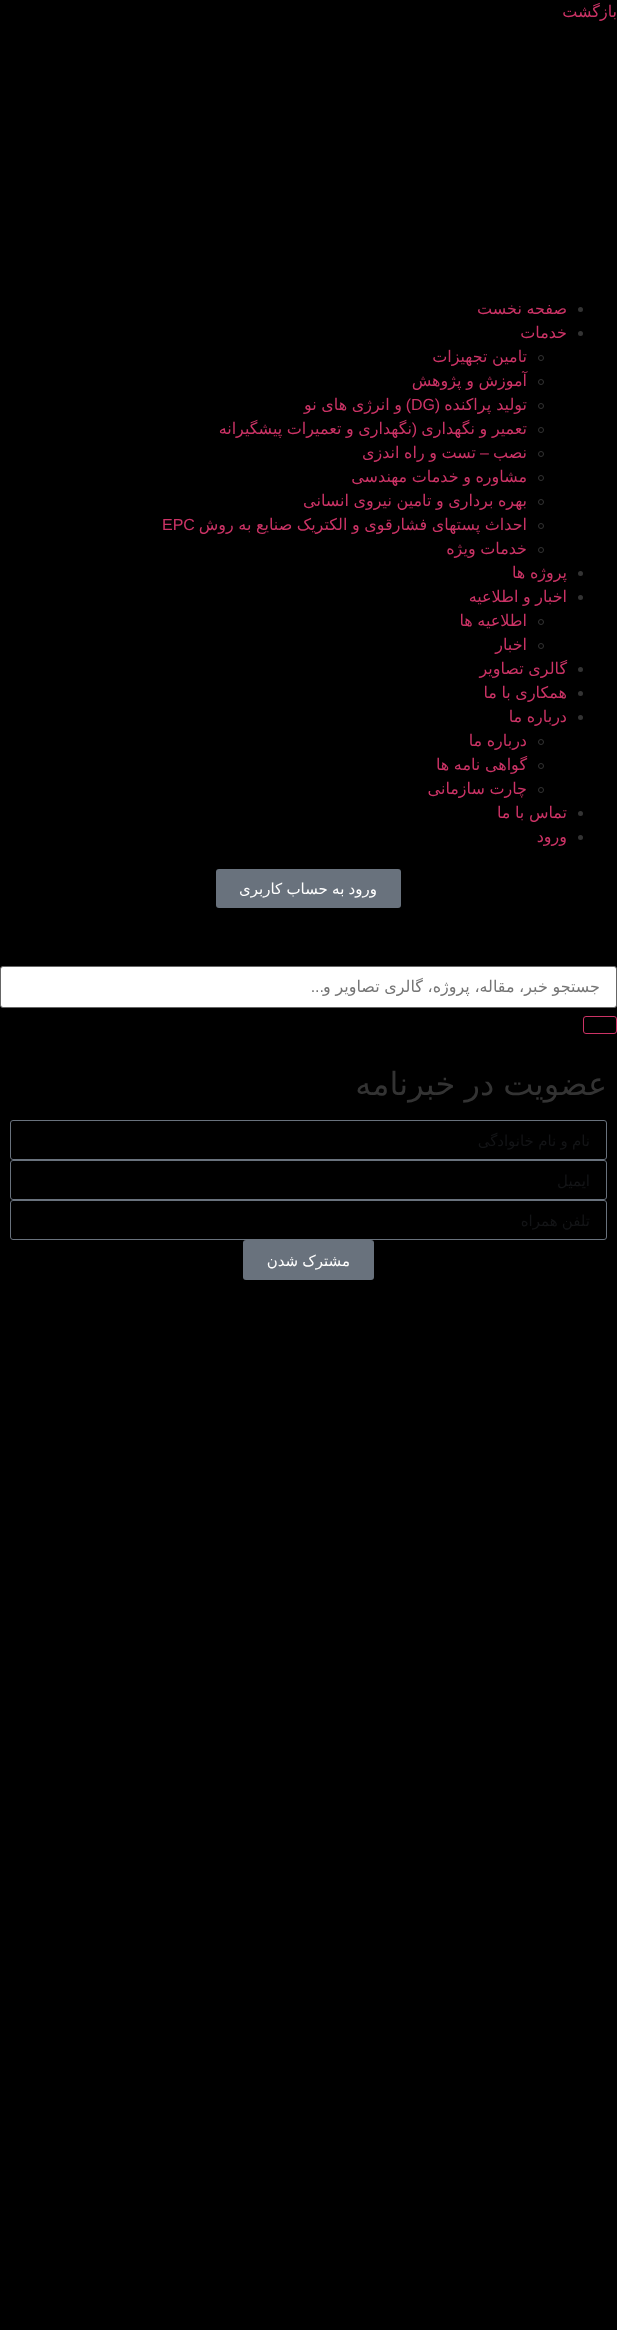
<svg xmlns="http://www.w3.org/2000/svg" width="617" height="2330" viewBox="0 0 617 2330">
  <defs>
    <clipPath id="clip1"><path d="M32 977h568v19H32z"/></clipPath>
    <clipPath id="clip2"><path d="M27 1132h563v18H27z"/></clipPath>
  </defs>
  <rect width="100%" height="100%" fill="#000"/>
  <circle cx="580.5" cy="309.5" r="2.5" fill="#333"/>
  <circle cx="580.5" cy="333.5" r="2.5" fill="#333"/>
  <circle cx="541" cy="358" r="2.5" fill="none" stroke="#333"/>
  <circle cx="541" cy="382" r="2.5" fill="none" stroke="#333"/>
  <circle cx="541" cy="406" r="2.5" fill="none" stroke="#333"/>
  <circle cx="541" cy="430" r="2.5" fill="none" stroke="#333"/>
  <circle cx="541" cy="454" r="2.5" fill="none" stroke="#333"/>
  <circle cx="541" cy="478" r="2.5" fill="none" stroke="#333"/>
  <circle cx="541" cy="502" r="2.5" fill="none" stroke="#333"/>
  <circle cx="541" cy="526" r="2.5" fill="none" stroke="#333"/>
  <circle cx="541" cy="550" r="2.5" fill="none" stroke="#333"/>
  <circle cx="580.5" cy="573.5" r="2.5" fill="#333"/>
  <circle cx="580.5" cy="597.5" r="2.5" fill="#333"/>
  <circle cx="541" cy="622" r="2.5" fill="none" stroke="#333"/>
  <circle cx="541" cy="646" r="2.5" fill="none" stroke="#333"/>
  <circle cx="580.5" cy="669.5" r="2.5" fill="#333"/>
  <circle cx="580.5" cy="693.5" r="2.5" fill="#333"/>
  <circle cx="580.5" cy="717.5" r="2.5" fill="#333"/>
  <circle cx="541" cy="742" r="2.5" fill="none" stroke="#333"/>
  <circle cx="541" cy="766" r="2.5" fill="none" stroke="#333"/>
  <circle cx="541" cy="790" r="2.5" fill="none" stroke="#333"/>
  <circle cx="580.5" cy="813.5" r="2.5" fill="#333"/>
  <circle cx="580.5" cy="837.5" r="2.5" fill="#333"/>
  <rect x="216" y="869" width="185" height="39" rx="3" fill="#69727d"/>
  <rect x="0.5" y="966.5" width="616" height="41" rx="2.5" fill="#fff" stroke="#666"/>
  <rect x="583.5" y="1016.5" width="33" height="17" rx="2.5" fill="none" stroke="#c36"/>
  <rect x="10.5" y="1120.5" width="596" height="39" rx="2.5" fill="none" stroke="#69727d"/>
  <rect x="10.5" y="1160.5" width="596" height="39" rx="2.5" fill="none" stroke="#69727d"/>
  <rect x="10.5" y="1200.5" width="596" height="39" rx="2.5" fill="none" stroke="#69727d"/>
  <rect x="243" y="1240" width="131" height="40" rx="3" fill="#69727d"/>
  <g font-family="DejaVu Sans" font-size="16" direction="rtl" fill="#c36">
    <text x="617" y="17">بازگشت</text>
    <text x="567" y="314" word-spacing="-0.5">صفحه نخست</text>
    <text x="567" y="338">خدمات</text>
    <text x="527" y="362" word-spacing="-0.5">تامین تجهیزات</text>
    <text x="527" y="386" word-spacing="-0.5">آموزش و پژوهش</text>
    <text x="527" y="410">تولید پراکنده</text>
  </g>
  <text x="440" y="410" font-family="Liberation Sans" font-size="16" direction="rtl" fill="#c36">(</text>
  <text x="411" y="410" font-family="Liberation Sans" font-size="16" fill="#c36">DG</text>
  <text x="411" y="410" font-family="Liberation Sans" font-size="16" direction="rtl" fill="#c36">)</text>
  <g font-family="DejaVu Sans" font-size="16" direction="rtl" fill="#c36">
    <text x="402" y="410" word-spacing="-0.5">و انرژی های نو</text>
    <text x="527" y="434" word-spacing="-0.5">تعمیر و نگهداری</text>
  </g>
  <text x="417" y="434" font-family="Liberation Sans" font-size="16" direction="rtl" fill="#c36">(</text>
  <g font-family="DejaVu Sans" font-size="16" direction="rtl" fill="#c36">
    <text x="412" y="434" word-spacing="-0.5">نگهداری و تعمیرات پیشگیرانه</text>
    <text x="527" y="458">نصب</text>
  </g>
  <text x="489" y="458" font-family="Liberation Sans" font-size="16" direction="rtl" fill="#c36">–</text>
  <g font-family="DejaVu Sans" font-size="16" direction="rtl" fill="#c36">
    <text x="476" y="458" word-spacing="-0.5">تست و راه اندزی</text>
    <text x="527" y="482" word-spacing="-0.5">مشاوره و خدمات مهندسی</text>
    <text x="527" y="506" word-spacing="-0.5">بهره برداری و تامین نیروی انسانی</text>
    <text x="527" y="530" word-spacing="-0.5">احداث پستهای فشارقوی و الکتریک صنایع به روش</text>
  </g>
  <text x="162" y="530" font-family="Liberation Sans" font-size="16" fill="#c36">EPC</text>
  <g font-family="DejaVu Sans" font-size="16" direction="rtl" fill="#c36">
    <text x="527" y="554" word-spacing="-0.5">خدمات ویژه</text>
    <text x="567" y="578" word-spacing="-0.5">پروژه ها</text>
    <text x="567" y="602" word-spacing="-0.5">اخبار و اطلاعیه</text>
    <text x="527" y="626" word-spacing="-0.5">اطلاعیه ها</text>
    <text x="527" y="650">اخبار</text>
    <text x="567" y="674" word-spacing="-0.5">گالری تصاویر</text>
    <text x="567" y="698" word-spacing="-0.5">همکاری با ما</text>
    <text x="567" y="722" word-spacing="-0.5">درباره ما</text>
    <text x="527" y="746" word-spacing="-0.5">درباره ما</text>
    <text x="527" y="770" word-spacing="-0.5">گواهی نامه ها</text>
    <text x="527" y="794" word-spacing="-0.5">چارت سازمانی</text>
    <text x="567" y="818" word-spacing="-0.5">تماس با ما</text>
    <text x="567" y="842">ورود</text>
  </g>
  <text x="377" y="894" word-spacing="-0.5" font-family="DejaVu Sans" font-size="15" direction="rtl" fill="#fff">ورود به حساب کاربری</text>
  <g clip-path="url(#clip1)">
    <text x="600" y="992" word-spacing="-0.5" font-family="DejaVu Sans" font-size="16" direction="rtl" fill="#757575">جستجو خبر، مقاله، پروژه، گالری تصاویر و</text>
  </g>
  <text x="324" y="992" font-family="Liberation Sans" font-size="16" direction="rtl" fill="#757575">...</text>
  <text x="607" y="1095" word-spacing="-1" font-family="DejaVu Sans" font-size="32" direction="rtl" fill="#333">عضویت در خبرنامه</text>
  <g clip-path="url(#clip2)">
    <text x="590" y="1146" word-spacing="-0.5" font-family="DejaVu Sans" font-size="15" direction="rtl" fill="#131416">نام و نام خانوادگی</text>
  </g>
  <g font-family="DejaVu Sans" font-size="15" direction="rtl" fill="#131416">
    <text x="590" y="1186">ایمیل</text>
    <text x="590" y="1226" word-spacing="-0.5">تلفن همراه</text>
  </g>
  <text x="350" y="1266" word-spacing="-0.5" font-family="DejaVu Sans" font-size="15" direction="rtl" fill="#fff">مشترک شدن</text>
</svg>
